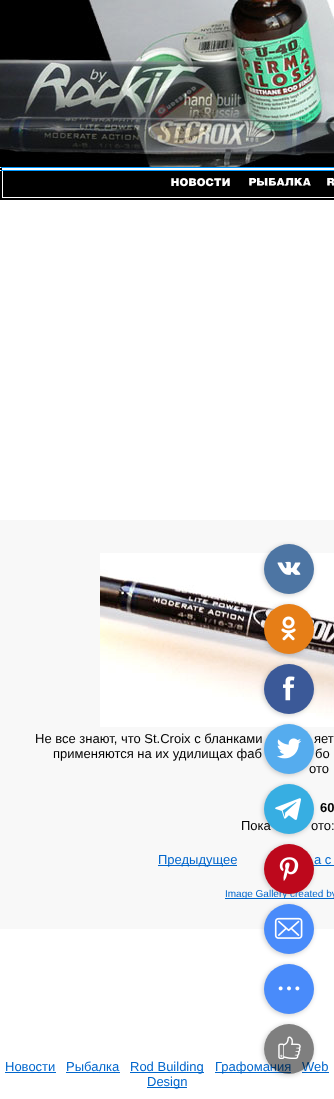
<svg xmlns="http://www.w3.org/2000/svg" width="334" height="1099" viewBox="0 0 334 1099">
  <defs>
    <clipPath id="clip1"><path d="M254 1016H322V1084H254ZM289 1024C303 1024 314 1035 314 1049C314 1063 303 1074 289 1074C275 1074 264 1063 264 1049C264 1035 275 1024 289 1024Z" clip-rule="evenodd"/></clipPath>
  </defs>
  <rect width="100%" height="100%" fill="#fff"/>
  <path d="M0 520h334v409H0z" fill="#f8f8f8"/>
  <image x="100" y="553" width="234" height="174" href="img/14.png"/>
  <rect x="263" y="545" width="50" height="50" rx="25" fill="#00000033" filter="blur(2.5px)"/>
  <circle cx="289" cy="569" r="25" fill="#4d75a3"/>
  <image x="277" y="561" width="24" height="14" href="img/1.png"/>
  <rect x="263" y="605" width="50" height="50" rx="25" fill="#00000033" filter="blur(2.5px)"/>
  <circle cx="289" cy="629" r="25" fill="#e67e17"/>
  <image x="281" y="616" width="15" height="25" href="img/2.png"/>
  <rect x="263" y="665" width="50" height="50" rx="25" fill="#00000033" filter="blur(2.5px)"/>
  <circle cx="289" cy="689" r="25" fill="#3b5998"/>
  <image x="283" y="676" width="12" height="25" href="img/3.png"/>
  <rect x="263" y="725" width="50" height="50" rx="25" fill="#00000033" filter="blur(2.5px)"/>
  <rect x="263" y="785" width="50" height="50" rx="25" fill="#00000033" filter="blur(2.5px)"/>
  <path d="M313 865h21v1H313z" fill="#06c"/>
  <path d="M225 898h109v1H225z" fill="#06c"/>
  <rect x="263" y="845" width="50" height="50" rx="25" fill="#00000033" filter="blur(2.5px)"/>
  <rect x="263" y="905" width="50" height="50" rx="25" fill="#00000033" filter="blur(2.5px)"/>
  <circle cx="289" cy="929" r="25" fill="#498bfa"/>
  <image x="274" y="917" width="29" height="22" href="img/7.png"/>
  <rect x="263" y="965" width="50" height="50" rx="25" fill="#00000033" filter="blur(2.5px)"/>
  <circle cx="289" cy="989" r="25" fill="#498bfa"/>
  <image x="278" y="986" width="22" height="5" href="img/8.png"/>
  <path d="M215 1072h76v1H215z" fill="#06c"/>
  <path d="M302 1072h27v1H302z" fill="#06c"/>
  <g clip-path="url(#clip1)">
    <rect x="263" y="1025" width="50" height="50" rx="25" fill="#00000033" filter="blur(2.5px)"/>
  </g>
  <image x="0" y="0" width="334" height="167" href="img/10.png"/>
  <path d="M0 167h334v1H0z" fill="#09f"/>
  <path d="M0 167h1v1H0z" fill="#fff"/>
  <path d="M0 168h2v2H0z" fill="#000"/>
  <path d="M0 170h334v1H0z" fill="#09f"/>
  <path d="M0 170h1v1H0z" fill="#fff"/>
  <path d="M0 171h2v27H0z" fill="#000"/>
  <path d="M3 171h331v26H3z" fill="#000"/>
  <image x="171" y="178" width="59" height="9" href="img/11.png"/>
  <image x="249" y="178" width="62" height="8" href="img/12.png"/>
  <image x="327" y="178" width="7" height="8" href="img/13.png"/>
  <path d="M0 198h334v2H0z" fill="#000"/>
  <path d="M158 865h79v1H158z" fill="#06c"/>
  <path d="M5 1072h51v1H5z" fill="#06c"/>
  <path d="M66 1072h54v1H66z" fill="#06c"/>
  <path d="M130 1072h74v1H130z" fill="#06c"/>
  <path d="M147 1087h40v1H147z" fill="#06c"/>
  <g font-family="Liberation Sans" font-size="13" fill="#000">
    <text x="35" y="743">Не все знают, что St.Croix с бланками</text>
    <text x="314" y="743">яет</text>
    <text x="53" y="758">применяются на их удилищах фаб</text>
    <text x="315" y="758">бо</text>
    <text x="309" y="773">ото</text>
  </g>
  <circle cx="289" cy="749" r="25" fill="#55acee"/>
  <image x="277" y="738" width="25" height="21" href="img/4.png"/>
  <text x="158" y="864" font-family="Liberation Sans" font-size="13" fill="#06c">Предыдущее</text>
  <text x="320" y="812" font-family="Liberation Sans" font-size="13" font-weight="bold" fill="#000">60</text>
  <g font-family="Liberation Sans" font-size="13" fill="#000">
    <text x="241" y="830">Пока</text>
    <text x="311" y="830">ото:</text>
  </g>
  <circle cx="289" cy="809" r="25" fill="#37aee2"/>
  <image x="275" y="798" width="26" height="22" href="img/5.png"/>
  <text x="314" y="864" font-family="Liberation Sans" font-size="13" fill="#06c">а с</text>
  <text x="225" y="897" font-family="Liberation Sans" font-size="10" fill="#06c">Image Gallery created by</text>
  <circle cx="289" cy="869" r="25" fill="#bd081c"/>
  <image x="279" y="857" width="20" height="24" href="img/6.png"/>
  <g font-family="Liberation Sans" font-size="13" fill="#06c">
    <text x="5" y="1071">Новости</text>
    <text x="66" y="1071">Рыбалка</text>
    <text x="130" y="1071">Rod Building</text>
    <text x="215" y="1071">Графомания</text>
    <text x="302" y="1071">Web</text>
  </g>
  <circle cx="289" cy="1049" r="25" fill="#00000080"/>
  <image x="278" y="1036" width="23" height="23" href="img/9.png"/>
  <text x="147" y="1086" font-family="Liberation Sans" font-size="13" fill="#06c">Design</text>
</svg>
